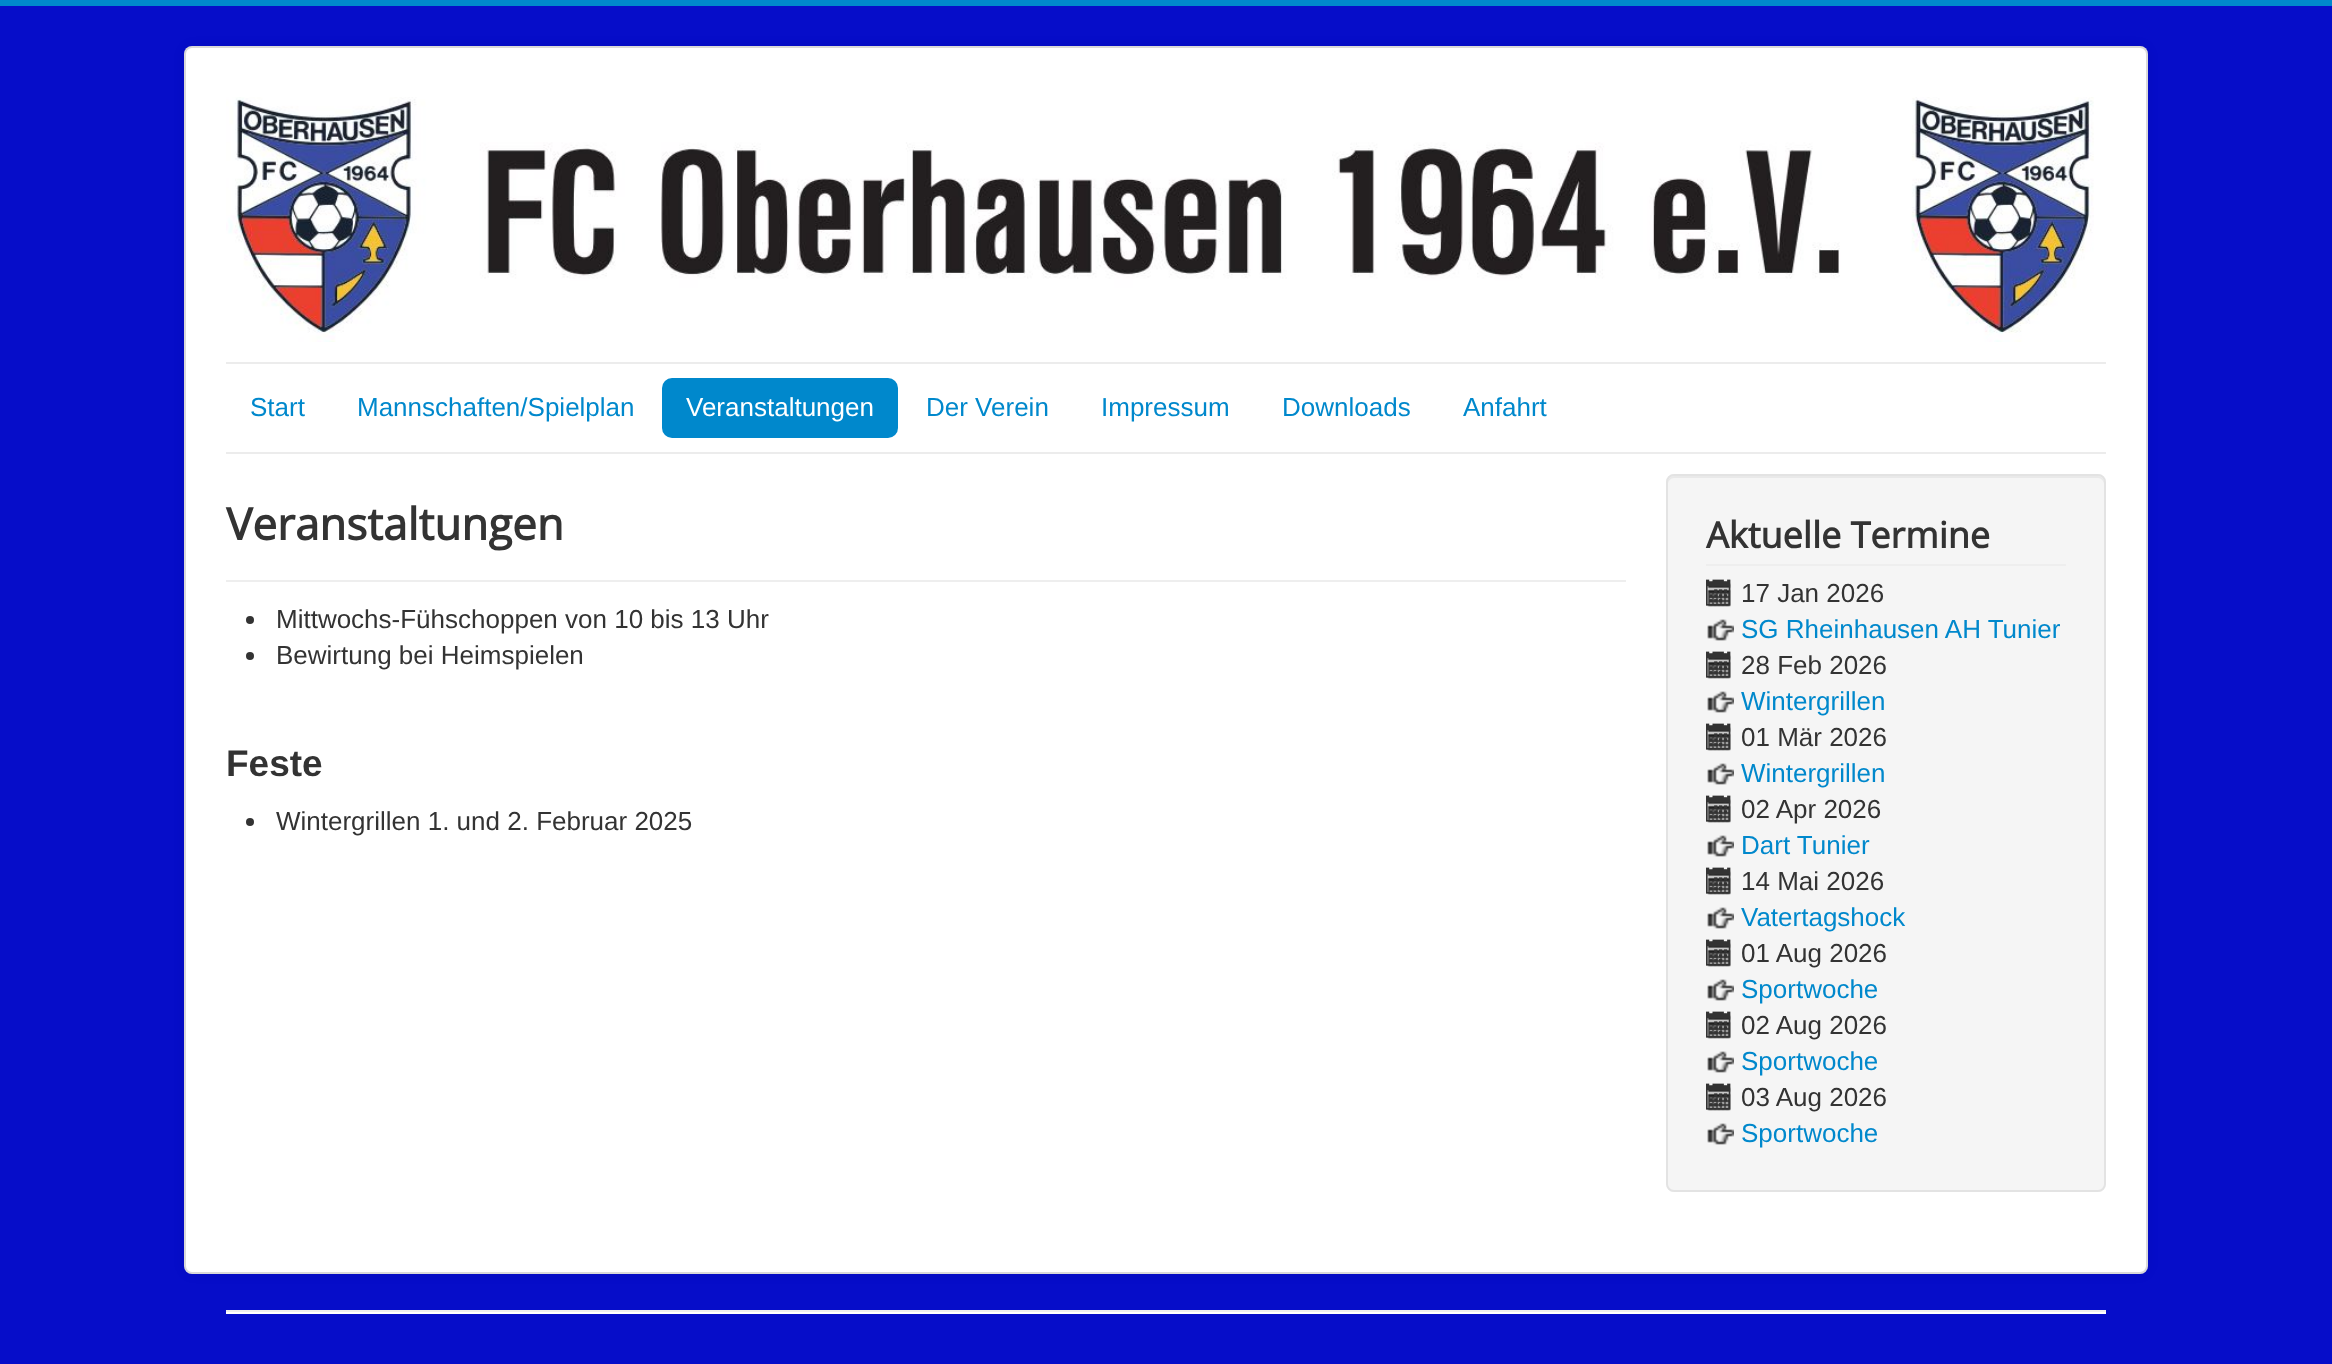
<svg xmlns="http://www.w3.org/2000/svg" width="2332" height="1364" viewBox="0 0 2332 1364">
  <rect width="100%" height="100%" fill="#060dc9"/>
  <path d="M0 0h2332v6H0z" fill="#08c"/>
  <rect x="184" y="46" width="1964" height="1228" rx="8" fill="#0000000d" filter="blur(6px)"/>
  <rect x="184" y="46" width="1964" height="1228" rx="8" fill="#fff"/>
  <rect x="185" y="47" width="1962" height="1226" rx="7" fill="none" stroke="#00000026" stroke-width="2"/>
  <image x="226" y="97" width="1868" height="245" href="img/1.png"/>
  <path d="M226 362h1880v2H226z" fill="#ececec"/>
  <path d="M226 452h1880v2H226z" fill="#ececec"/>
  <rect x="662" y="378" width="236" height="60" rx="10" fill="#08c"/>
  <path d="M226 580h1400v2H226z" fill="#eee"/>
  <circle cx="250" cy="620" r="4" fill="#333"/>
  <circle cx="250" cy="656" r="4" fill="#333"/>
  <circle cx="250" cy="822" r="4" fill="#333"/>
  <rect x="1666" y="474" width="440" height="718" rx="8" fill="#f5f5f5"/>
  <path d="M1674 478H2098C2101 478 2104 481 2104 484V482C2104 479 2101 476 2098 476H1674C1671 476 1668 479 1668 482V484C1668 481 1671 478 1674 478Z" fill="#e9e9e9"/>
  <rect x="1667" y="475" width="438" height="716" rx="7" fill="none" stroke="#e3e3e3" stroke-width="2"/>
  <path d="M1706 564h360v2H1706z" fill="#eee"/>
  <image x="1707" y="581" width="24" height="26" href="img/2.png"/>
  <image x="1706" y="579" width="25" height="27" href="img/3.png"/>
  <image x="1707" y="619" width="27" height="22" href="img/4.png"/>
  <image x="1707" y="653" width="24" height="26" href="img/2.png"/>
  <image x="1706" y="651" width="25" height="27" href="img/3.png"/>
  <image x="1707" y="691" width="27" height="22" href="img/4.png"/>
  <image x="1707" y="725" width="24" height="26" href="img/2.png"/>
  <image x="1706" y="723" width="25" height="27" href="img/3.png"/>
  <image x="1707" y="763" width="27" height="22" href="img/4.png"/>
  <image x="1707" y="797" width="24" height="26" href="img/2.png"/>
  <image x="1706" y="795" width="25" height="27" href="img/3.png"/>
  <image x="1707" y="835" width="27" height="22" href="img/4.png"/>
  <image x="1707" y="869" width="24" height="26" href="img/2.png"/>
  <image x="1706" y="867" width="25" height="27" href="img/3.png"/>
  <image x="1707" y="907" width="27" height="22" href="img/4.png"/>
  <image x="1707" y="941" width="24" height="26" href="img/2.png"/>
  <image x="1706" y="939" width="25" height="27" href="img/3.png"/>
  <image x="1707" y="979" width="27" height="22" href="img/4.png"/>
  <image x="1707" y="1013" width="24" height="26" href="img/2.png"/>
  <image x="1706" y="1011" width="25" height="27" href="img/3.png"/>
  <image x="1707" y="1051" width="27" height="22" href="img/4.png"/>
  <image x="1707" y="1085" width="24" height="26" href="img/2.png"/>
  <image x="1706" y="1083" width="25" height="27" href="img/3.png"/>
  <image x="1707" y="1123" width="27" height="22" href="img/4.png"/>
  <path d="M226 1310h1880v2H226z" fill="#eee"/>
  <path d="M226 1312h1880v2H226z" fill="#fff"/>
  <g font-family="Liberation Sans" font-size="26" fill="#08c">
    <text x="250" y="416">Start</text>
    <text x="357" y="416">Mannschaften/Spielplan</text>
  </g>
  <text x="686" y="416" font-family="Liberation Sans" font-size="26" fill="#fff">Veranstaltungen</text>
  <g font-family="Liberation Sans" font-size="26" fill="#08c">
    <text x="926" y="416">Der Verein</text>
    <text x="1101" y="416">Impressum</text>
    <text x="1282" y="416">Downloads</text>
    <text x="1463" y="416">Anfahrt</text>
  </g>
  <text x="226" y="540" font-family="Open Sans" font-size="44" font-weight="bold" fill="#333">Veranstaltungen</text>
  <g font-family="Liberation Sans" font-size="26" fill="#333">
    <text x="276" y="628">Mittwochs-Fühschoppen von 10 bis 13 Uhr</text>
    <text x="276" y="664">Bewirtung bei Heimspielen</text>
  </g>
  <text x="226" y="776" font-family="Liberation Sans" font-size="37" font-weight="bold" fill="#333">Feste</text>
  <text x="276" y="830" font-family="Liberation Sans" font-size="26" fill="#333">Wintergrillen 1. und 2. Februar 2025</text>
  <text x="1706" y="548" font-family="Open Sans" font-size="36" font-weight="bold" fill="#333">Aktuelle Termine</text>
  <text x="1741" y="602" font-family="Liberation Sans" font-size="26" fill="#333">17 Jan 2026</text>
  <text x="1741" y="638" font-family="Liberation Sans" font-size="26" fill="#08c">SG Rheinhausen AH Tunier</text>
  <text x="1741" y="674" font-family="Liberation Sans" font-size="26" fill="#333">28 Feb 2026</text>
  <text x="1741" y="710" font-family="Liberation Sans" font-size="26" fill="#08c">Wintergrillen</text>
  <text x="1741" y="746" font-family="Liberation Sans" font-size="26" fill="#333">01 Mär 2026</text>
  <text x="1741" y="782" font-family="Liberation Sans" font-size="26" fill="#08c">Wintergrillen</text>
  <text x="1741" y="818" font-family="Liberation Sans" font-size="26" fill="#333">02 Apr 2026</text>
  <text x="1741" y="854" font-family="Liberation Sans" font-size="26" fill="#08c">Dart Tunier</text>
  <text x="1741" y="890" font-family="Liberation Sans" font-size="26" fill="#333">14 Mai 2026</text>
  <text x="1741" y="926" font-family="Liberation Sans" font-size="26" fill="#08c">Vatertagshock</text>
  <text x="1741" y="962" font-family="Liberation Sans" font-size="26" fill="#333">01 Aug 2026</text>
  <text x="1741" y="998" font-family="Liberation Sans" font-size="26" fill="#08c">Sportwoche</text>
  <text x="1741" y="1034" font-family="Liberation Sans" font-size="26" fill="#333">02 Aug 2026</text>
  <text x="1741" y="1070" font-family="Liberation Sans" font-size="26" fill="#08c">Sportwoche</text>
  <text x="1741" y="1106" font-family="Liberation Sans" font-size="26" fill="#333">03 Aug 2026</text>
  <text x="1741" y="1142" font-family="Liberation Sans" font-size="26" fill="#08c">Sportwoche</text>
</svg>
